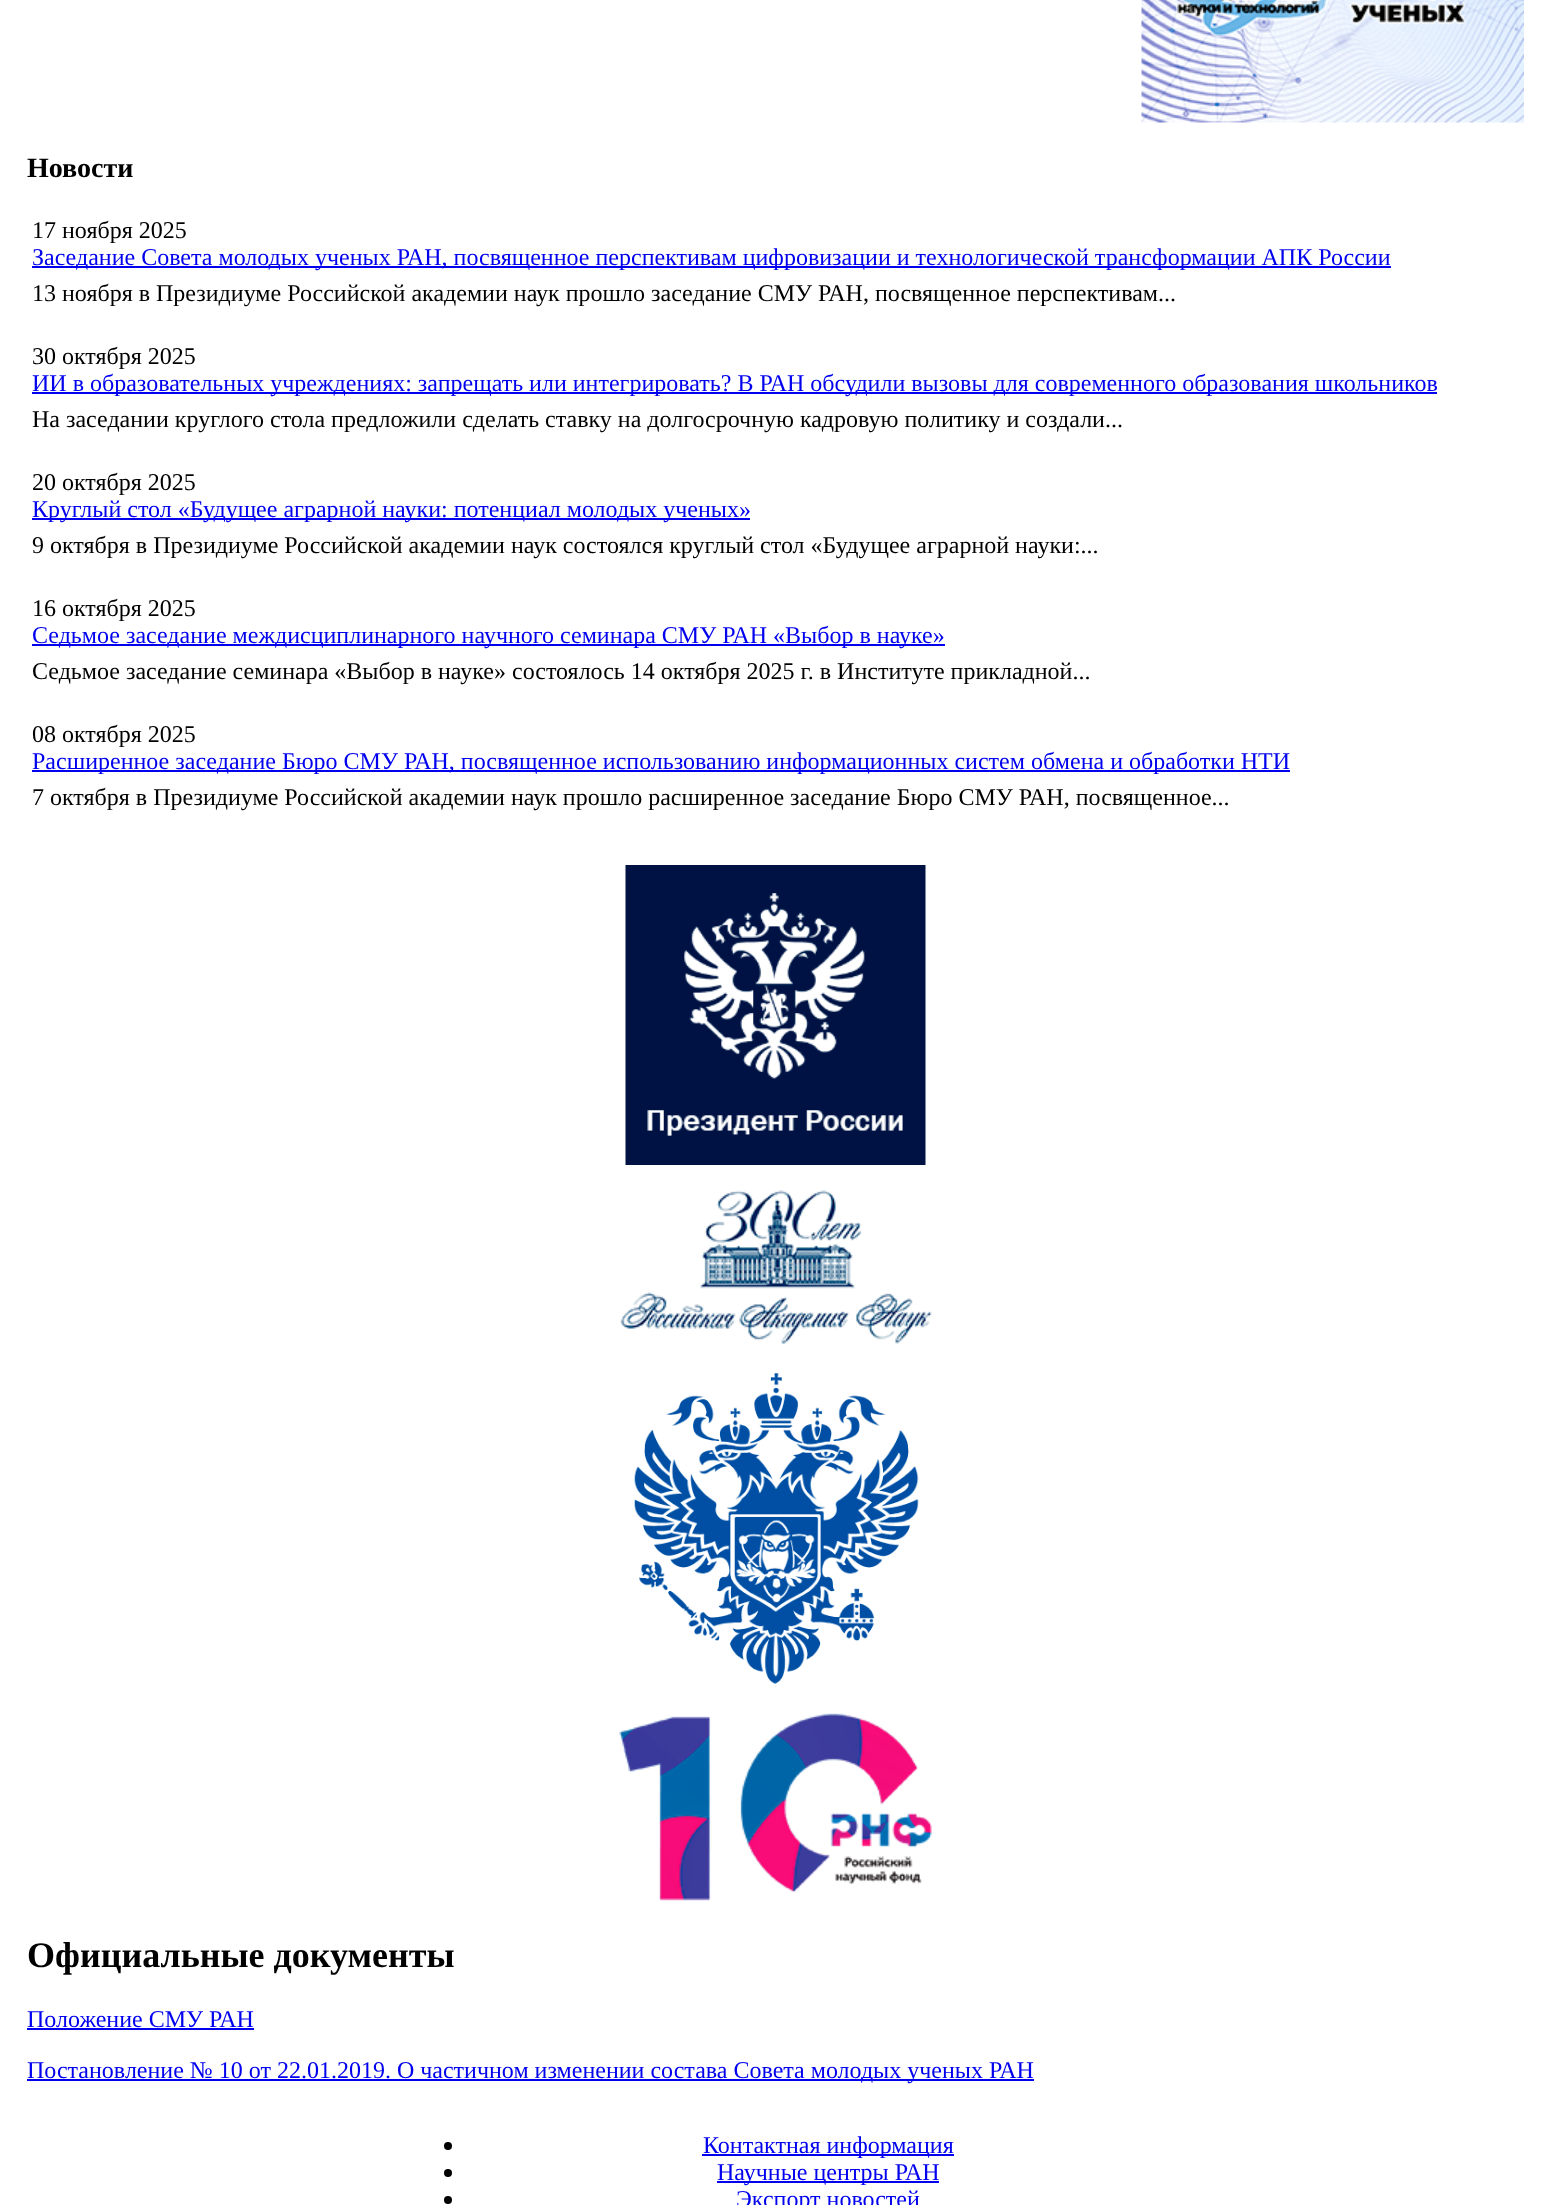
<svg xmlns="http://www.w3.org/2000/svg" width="1550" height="2205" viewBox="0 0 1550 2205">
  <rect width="100%" height="100%" fill="#fff"/>
  <image x="1141" y="0" width="383" height="123" href="img/1.png"/>
  <path d="M32 266h1359v2H32z" fill="#00e"/>
  <path d="M32 392h1405v2H32z" fill="#00e"/>
  <path d="M32 518h718v2H32z" fill="#00e"/>
  <path d="M32 644h913v2H32z" fill="#00e"/>
  <path d="M32 770h1258v2H32z" fill="#00e"/>
  <image x="625" y="865" width="301" height="300" href="img/2.png"/>
  <image x="620" y="1190" width="312" height="154" href="img/3.png"/>
  <image x="634" y="1373" width="285" height="311" href="img/4.png"/>
  <image x="619" y="1713" width="313" height="188" href="img/5.png"/>
  <path d="M27 2028h227v2H27z" fill="#00e"/>
  <path d="M27 2079h1007v2H27z" fill="#00e"/>
  <circle cx="448" cy="2146" r="4" fill="#000"/>
  <path d="M702 2154h252v2H702z" fill="#00e"/>
  <circle cx="448" cy="2173" r="4" fill="#000"/>
  <path d="M717 2181h222v2H717z" fill="#00e"/>
  <circle cx="448" cy="2200" r="4" fill="#000"/>
  <text x="27" y="177" font-family="Liberation Serif" font-size="28" font-weight="bold" fill="#000">Новости</text>
  <text x="32" y="238" font-family="Liberation Serif" font-size="24" fill="#000">17 ноября 2025</text>
  <text x="32" y="265" font-family="Liberation Serif" font-size="24" fill="#00e">Заседание Совета молодых ученых РАН, посвященное перспективам цифровизации и технологической трансформации АПК России</text>
  <g font-family="Liberation Serif" font-size="24" fill="#000">
    <text x="32" y="301">13 ноября в Президиуме Российской академии наук прошло заседание СМУ РАН, посвященное перспективам...</text>
    <text x="32" y="364">30 октября 2025</text>
  </g>
  <text x="32" y="391" font-family="Liberation Serif" font-size="24" fill="#00e">ИИ в образовательных учреждениях: запрещать или интегрировать? В РАН обсудили вызовы для современного образования школьников</text>
  <g font-family="Liberation Serif" font-size="24" fill="#000">
    <text x="32" y="427">На заседании круглого стола предложили сделать ставку на долгосрочную кадровую политику и создали...</text>
    <text x="32" y="490">20 октября 2025</text>
  </g>
  <text x="32" y="517" font-family="Liberation Serif" font-size="24" fill="#00e">Круглый стол «Будущее аграрной науки: потенциал молодых ученых»</text>
  <g font-family="Liberation Serif" font-size="24" fill="#000">
    <text x="32" y="553">9 октября в Президиуме Российской академии наук состоялся круглый стол «Будущее аграрной науки:...</text>
    <text x="32" y="616">16 октября 2025</text>
  </g>
  <text x="32" y="643" font-family="Liberation Serif" font-size="24" fill="#00e">Седьмое заседание междисциплинарного научного семинара СМУ РАН «Выбор в науке»</text>
  <g font-family="Liberation Serif" font-size="24" fill="#000">
    <text x="32" y="679">Седьмое заседание семинара «Выбор в науке» состоялось 14 октября 2025 г. в Институте прикладной...</text>
    <text x="32" y="742">08 октября 2025</text>
  </g>
  <text x="32" y="769" font-family="Liberation Serif" font-size="24" fill="#00e">Расширенное заседание Бюро СМУ РАН, посвященное использованию информационных систем обмена и обработки НТИ</text>
  <text x="32" y="805" font-family="Liberation Serif" font-size="24" fill="#000">7 октября в Президиуме Российской академии наук прошло расширенное заседание Бюро СМУ РАН, посвященное...</text>
  <text x="27" y="1967" font-family="Liberation Serif" font-size="36" font-weight="bold" fill="#000">Официальные документы</text>
  <g font-family="Liberation Serif" font-size="24" fill="#00e">
    <text x="27" y="2027">Положение СМУ РАН</text>
    <text x="27" y="2078">Постановление № 10 от 22.01.2019. О частичном изменении состава Совета молодых ученых РАН</text>
    <text x="703" y="2153">Контактная информация</text>
    <text x="717" y="2180">Научные центры РАН</text>
    <text x="736" y="2207">Экспорт новостей</text>
  </g>
</svg>
